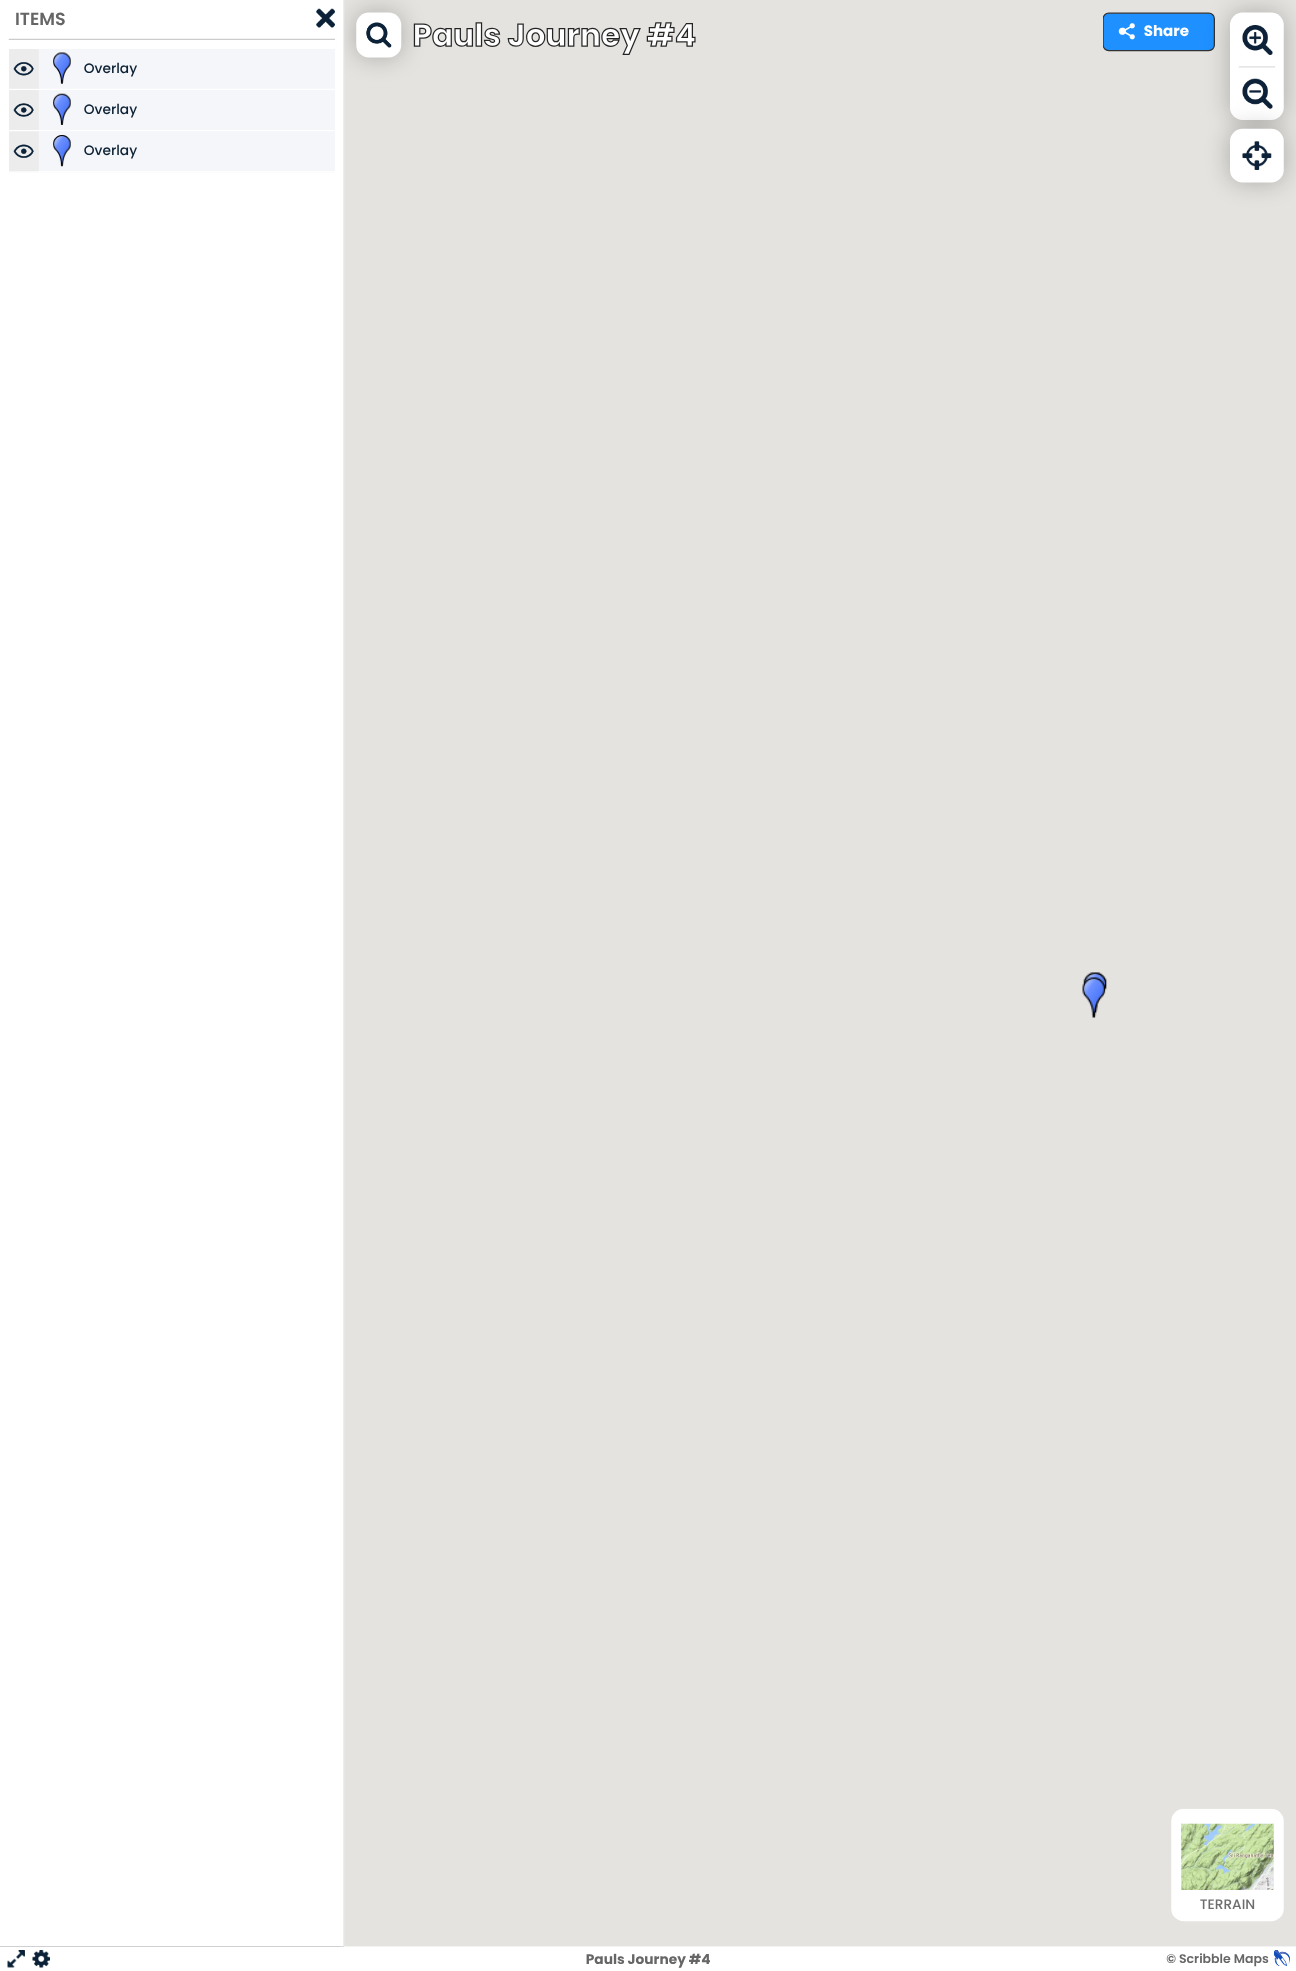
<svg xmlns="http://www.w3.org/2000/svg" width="1296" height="1971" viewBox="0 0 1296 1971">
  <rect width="100%" height="100%" fill="#fff"/>
  <image x="0" y="0" width="1296" height="1968" href="img/1.png"/>
</svg>
